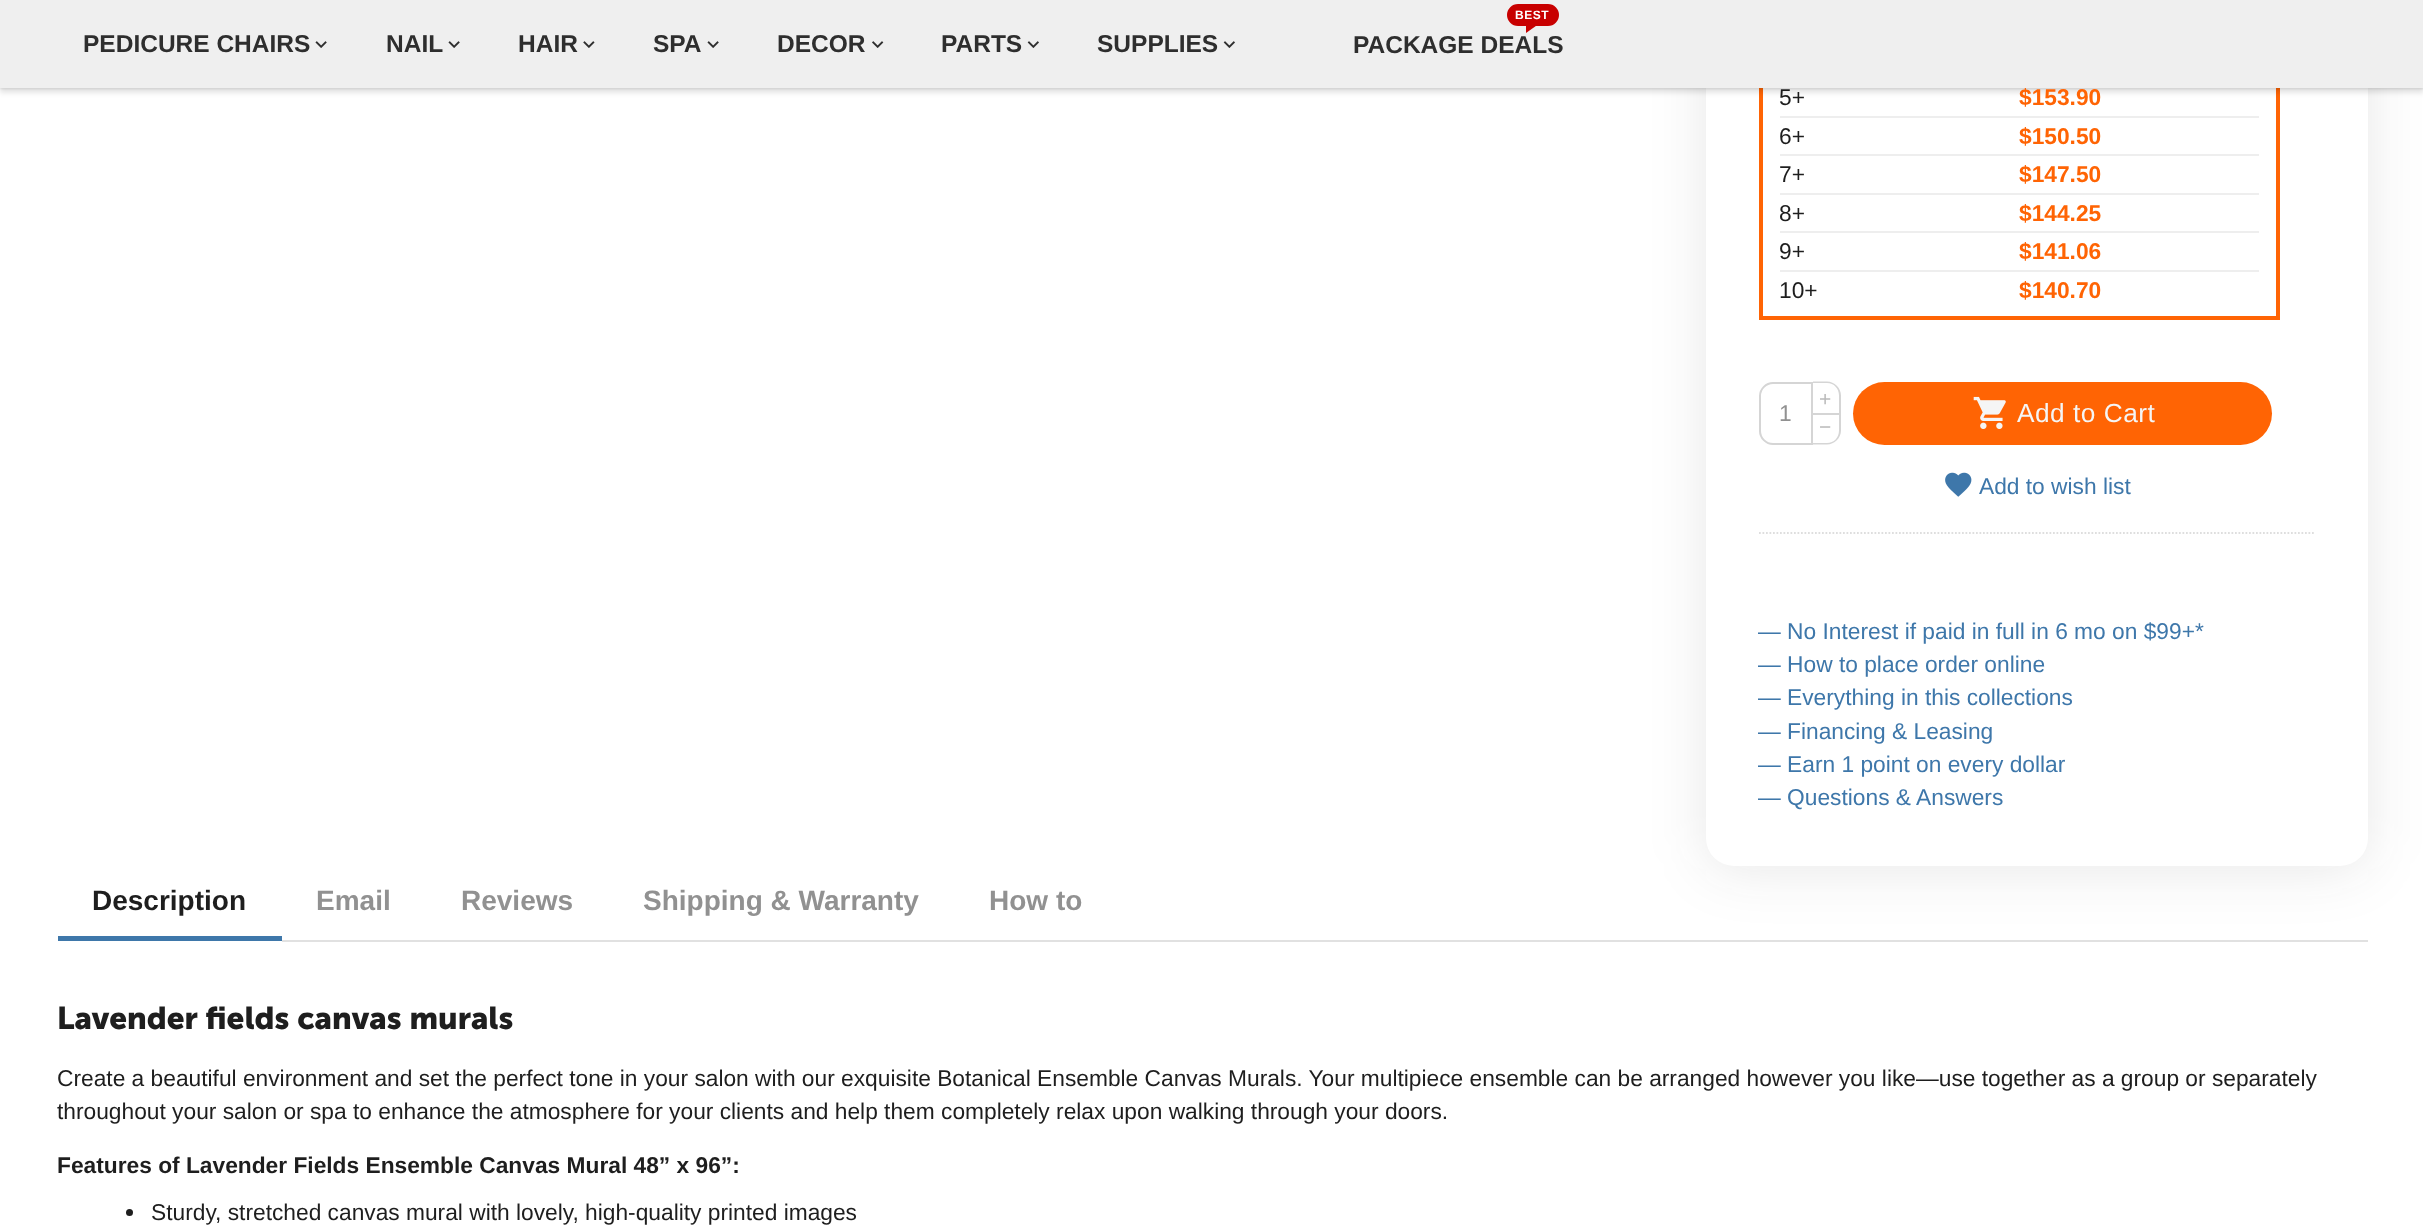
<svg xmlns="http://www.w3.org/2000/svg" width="2423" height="1226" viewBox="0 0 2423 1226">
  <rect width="100%" height="100%" fill="#fff"/>
  <path d="M282 940h2086v2H282z" fill="#e1e1e1"/>
  <rect x="1706" y="-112" width="662" height="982" rx="28" fill="#1e1e1e1a" filter="blur(28px)"/>
  <rect x="1706" y="-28" width="662" height="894" rx="28" fill="#fff"/>
  <path d="M1761 -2h517v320H1761z" fill="none" stroke="#ff6404" stroke-width="4"/>
  <path d="M0 5h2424v88H0z" fill="#0000001a" filter="blur(2.5px)"/>
  <path d="M0 2h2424v87H0z" fill="#0000001a" filter="blur(1px)"/>
  <path d="M0 0h2423v88H0z" fill="#efefef"/>
  <image x="315" y="41" width="12" height="7" href="img/1.png"/>
  <image x="448" y="41" width="12" height="7" href="img/1.png"/>
  <image x="583" y="41" width="12" height="7" href="img/2.png"/>
  <image x="707" y="41" width="12" height="7" href="img/1.png"/>
  <image x="872" y="41" width="12" height="7" href="img/3.png"/>
  <image x="1027" y="41" width="12" height="7" href="img/4.png"/>
  <image x="1223" y="41" width="12" height="7" href="img/4.png"/>
  <path d="M1526 24.5H1538L1526 33Z" fill="#c80000"/>
  <rect x="1508" y="5" width="50" height="20" rx="10" fill="#c80000" stroke="#c80000" stroke-width="2"/>
  <path d="M1780 116h479v2H1780z" fill="#eee"/>
  <path d="M1780 154h479v2H1780z" fill="#eee"/>
  <path d="M1780 193h479v2H1780z" fill="#eee"/>
  <path d="M1780 231h479v2H1780z" fill="#eee"/>
  <path d="M1780 270h479v2H1780z" fill="#eee"/>
  <path d="M1813 381.5H1827C1834.5 381.5 1841 388 1841 395.5V413H1813ZM1813 383H1827C1834 383 1839 388.5 1839 395.5V413H1813Z" fill="#d5d5d5" fill-rule="evenodd"/>
  <path d="M1773 383H1812V444H1773C1766 444 1760 438 1760 431V396C1760 389 1766 383 1773 383Z" fill="none" stroke="#d5d5d5" stroke-width="2"/>
  <path d="M1813 413H1841V430.5C1841 438 1834.5 444.5 1827 444.5H1813ZM1813 415H1839V430.5C1839 437.5 1834 443 1827 443H1813Z" fill="#d5d5d5" fill-rule="evenodd"/>
  <rect x="1853" y="382" width="419" height="63" rx="31.5" fill="#ff6404"/>
  <image x="1973" y="396" width="33" height="33" href="img/5.png"/>
  <image x="1945" y="472" width="27" height="25" href="img/6.png"/>
  <path d="M1759 533H2315" fill="none" stroke="#dedede" stroke-width="1.8" stroke-dasharray="1.75 1.75"/>
  <path d="M58 936h224v5H58z" fill="#3e77aa"/>
  <circle cx="129.5" cy="1212.5" r="3.5" fill="#1e1e1e"/>
  <g font-family="Liberation Sans" font-size="24.5" font-weight="bold" fill="#2e2e2e">
    <text x="83" y="52">PEDICURE CHAIRS</text>
    <text x="386" y="52">NAIL</text>
    <text x="518" y="52">HAIR</text>
    <text x="653" y="52">SPA</text>
    <text x="777" y="52">DECOR</text>
    <text x="941" y="52">PARTS</text>
    <text x="1097" y="52">SUPPLIES</text>
  </g>
  <text x="1515" y="19" font-family="Liberation Sans" font-size="12" font-weight="bold" letter-spacing="0.5" fill="#fff">BEST</text>
  <text x="1353" y="53" font-family="Liberation Sans" font-size="24.5" font-weight="bold" fill="#2e2e2e">PACKAGE DEALS</text>
  <g font-family="Liberation Sans" font-size="22.75" fill="#1e1e1e">
    <text x="1779" y="105">5+</text>
    <text x="1779" y="144">6+</text>
    <text x="1779" y="182">7+</text>
    <text x="1779" y="221">8+</text>
    <text x="1779" y="259">9+</text>
    <text x="1779" y="298">10+</text>
  </g>
  <g font-family="Liberation Sans" font-size="22.75" font-weight="bold" fill="#ff6404">
    <text x="2019" y="105">$153.90</text>
    <text x="2019" y="144">$150.50</text>
    <text x="2019" y="182">$147.50</text>
    <text x="2019" y="221">$144.25</text>
    <text x="2019" y="259">$141.06</text>
    <text x="2019" y="298">$140.70</text>
  </g>
  <text x="1819" y="406" font-family="Liberation Sans" font-size="21" fill="#bbb">+</text>
  <text x="1779" y="421" font-family="Liberation Sans" font-size="22.75" fill="#919191">1</text>
  <text x="1819" y="434" font-family="Liberation Sans" font-size="21" fill="#bbb">−</text>
  <text x="2017" y="422" font-family="Liberation Sans" font-size="26.25" letter-spacing="0.5" fill="#f5f5f5">Add to Cart</text>
  <g font-family="Liberation Sans" font-size="22.75" fill="#3e77aa">
    <text x="1979" y="494">Add to wish list</text>
    <text x="1758" y="639">— No Interest if paid in full in 6 mo on $99+*</text>
    <text x="1758" y="672">— How to place order online</text>
    <text x="1758" y="705">— Everything in this collections</text>
    <text x="1758" y="739">— Financing &amp; Leasing</text>
    <text x="1758" y="772">— Earn 1 point on every dollar</text>
    <text x="1758" y="805">— Questions &amp; Answers</text>
  </g>
  <text x="92" y="910" font-family="Liberation Sans" font-size="28" font-weight="bold" fill="#1e1e1e">Description</text>
  <g font-family="Liberation Sans" font-size="28" font-weight="bold" fill="#919191">
    <text x="316" y="910">Email</text>
    <text x="461" y="910">Reviews</text>
    <text x="643" y="910">Shipping &amp; Warranty</text>
    <text x="989" y="910">How to</text>
  </g>
  <text x="57" y="1029" font-family="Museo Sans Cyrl" font-size="31.5" font-weight="bold" fill="#1e1e1e">Lavender fields canvas murals</text>
  <g font-family="Liberation Sans" font-size="22.75" fill="#1e1e1e">
    <text x="57" y="1086">Create a beautiful environment and set the perfect tone in your salon with our exquisite Botanical Ensemble Canvas Murals. Your multipiece ensemble can be arranged however you like—use together as a group or separately</text>
    <text x="57" y="1119">throughout your salon or spa to enhance the atmosphere for your clients and help them completely relax upon walking through your doors.</text>
  </g>
  <text x="57" y="1173" font-family="Liberation Sans" font-size="22.75" font-weight="bold" fill="#1e1e1e">Features of Lavender Fields Ensemble Canvas Mural 48” x 96”:</text>
  <text x="151" y="1220" font-family="Liberation Sans" font-size="22.75" fill="#1e1e1e">Sturdy, stretched canvas mural with lovely, high-quality printed images</text>
</svg>
